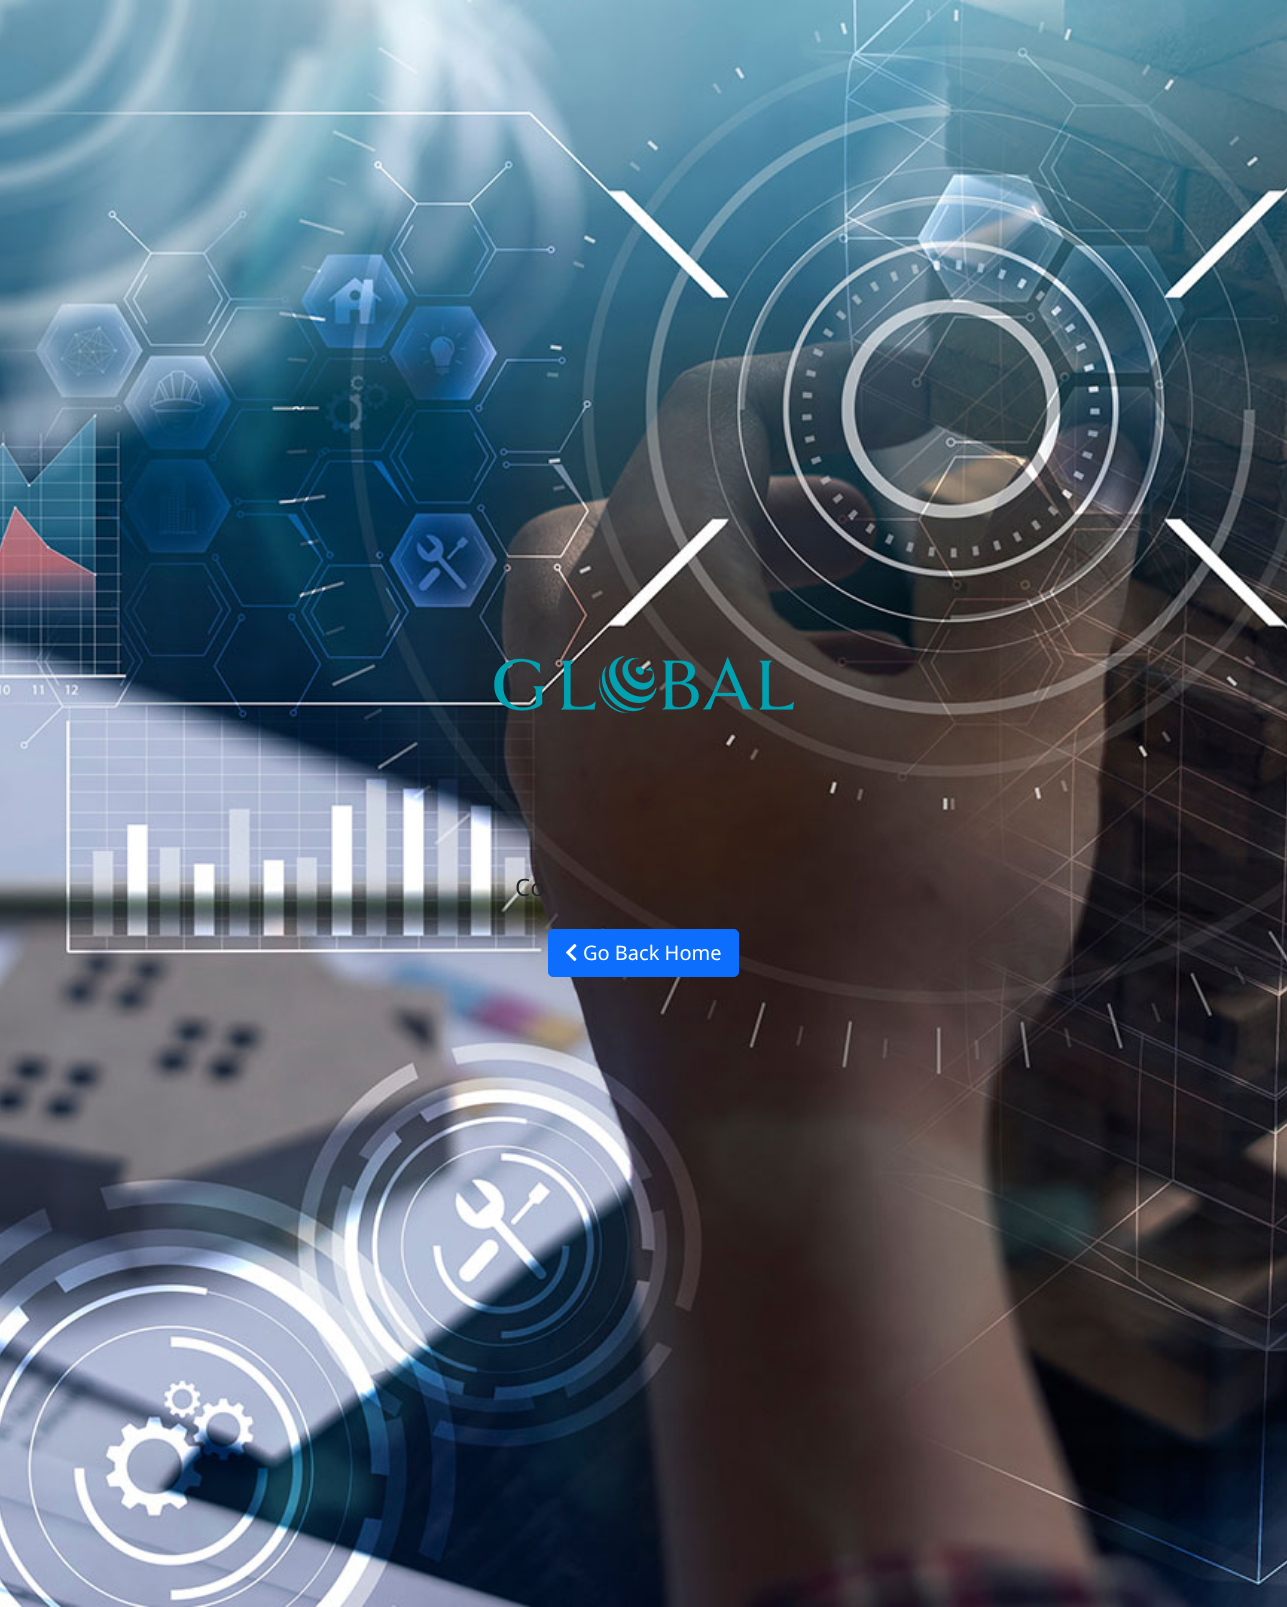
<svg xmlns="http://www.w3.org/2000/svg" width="1287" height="1607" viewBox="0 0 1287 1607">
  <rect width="100%" height="100%" fill="#fff"/>
  <image x="0" y="0" width="1287" height="1607" href="img/1.png"/>
  <image x="494" y="656" width="300" height="57" href="img/2.png"/>
  <rect x="548.5" y="929.5" width="190" height="47" rx="4.5" fill="#0d6efd" stroke="#0d6efd"/>
  <image x="566" y="944" width="11" height="17" href="img/3.png"/>
  <text x="515" y="896" font-family="Noto Sans" font-size="24" fill="#212529">Co</text>
  <text x="583" y="960" font-family="Noto Sans" font-size="20" fill="#fff">Go Back Home</text>
</svg>
